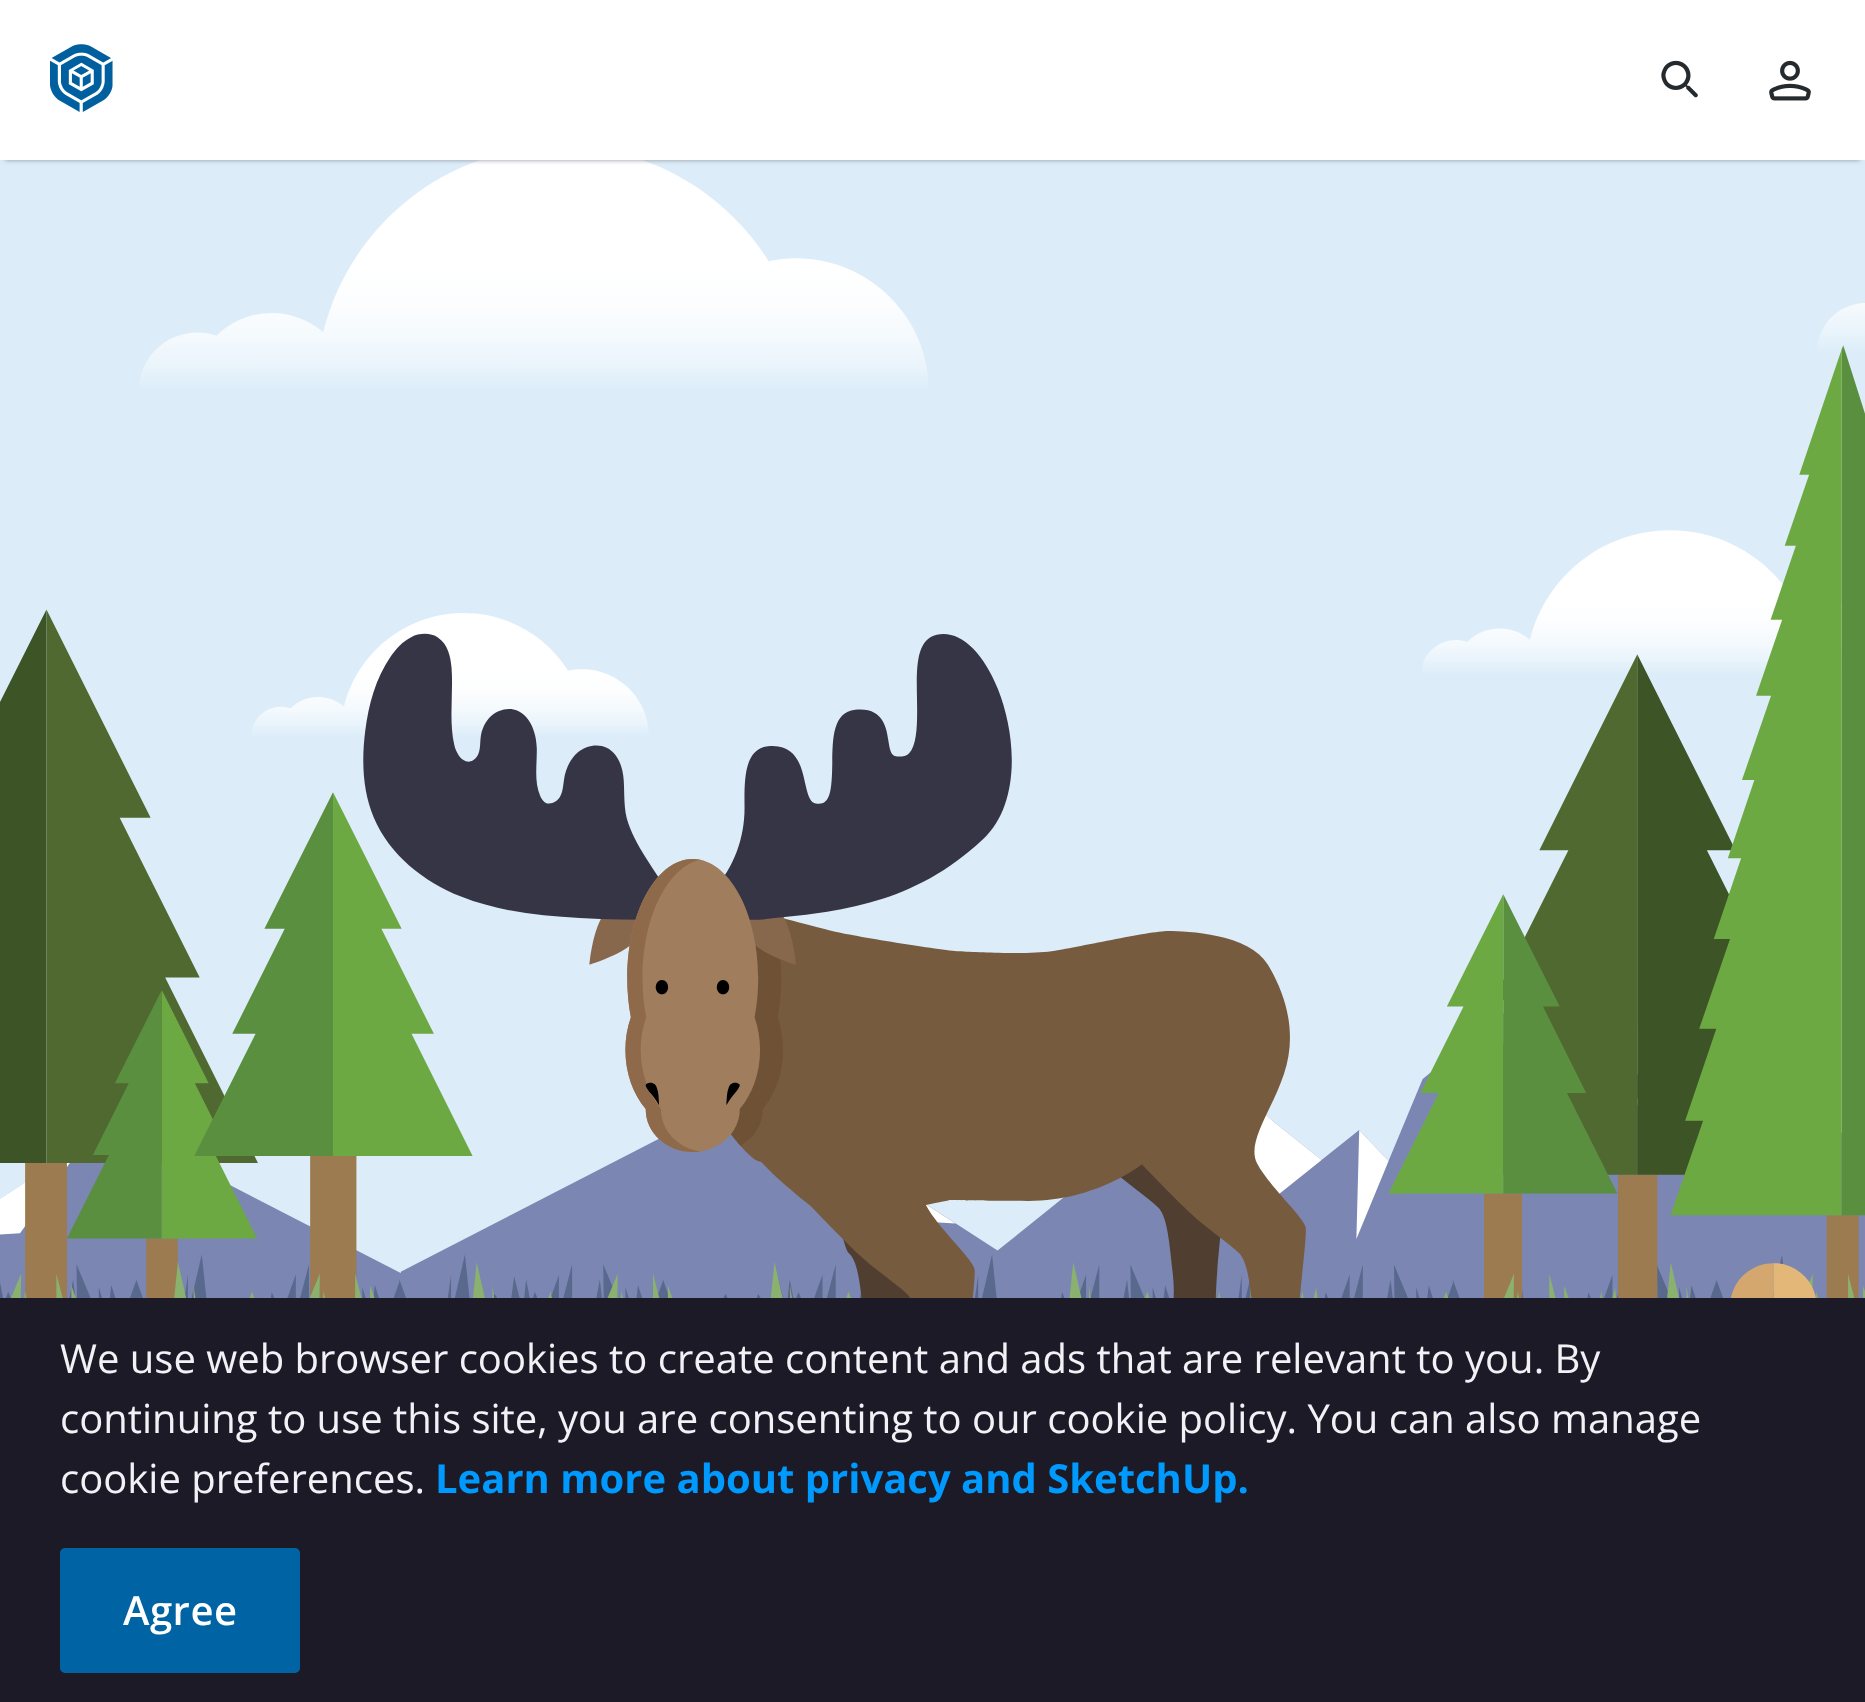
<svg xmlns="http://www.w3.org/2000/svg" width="1865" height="1702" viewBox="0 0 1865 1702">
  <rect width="100%" height="100%" fill="#fff"/>
  <image x="0" y="160" width="1865" height="1138" href="img/4.png"/>
  <path d="M5 10h1855v150H5z" fill="#90939f" filter="blur(2.5px)"/>
  <path d="M0 5h1865v155H0z" fill="#fff"/>
  <image x="50" y="44" width="63" height="68" href="img/1.png"/>
  <image x="1661" y="60" width="37" height="38" href="img/2.png"/>
  <image x="1769" y="60" width="42" height="41" href="img/3.png"/>
  <path d="M0 1298h1865v404H0z" fill="#1b1a26"/>
  <rect x="61.5" y="1549.5" width="237" height="122" rx="3.5" fill="#0063a3" stroke="#0063a3" stroke-width="3"/>
  <g font-family="Open Sans" font-size="40" fill="#f1f1f6">
    <text x="60" y="1373">We use web browser cookies to create content and ads that are relevant to you. By</text>
    <text x="60" y="1433">continuing to use this site, you are consenting to our cookie policy. You can also manage</text>
    <text x="60" y="1493">cookie preferences.</text>
  </g>
  <text x="435" y="1493" font-family="Open Sans" font-size="40" font-weight="bold" fill="#0099fe">Learn more about privacy and SketchUp.</text>
  <text x="123" y="1625" font-family="Open Sans" font-size="40" font-weight="600" letter-spacing="0.5" fill="#fff">Agree</text>
</svg>
